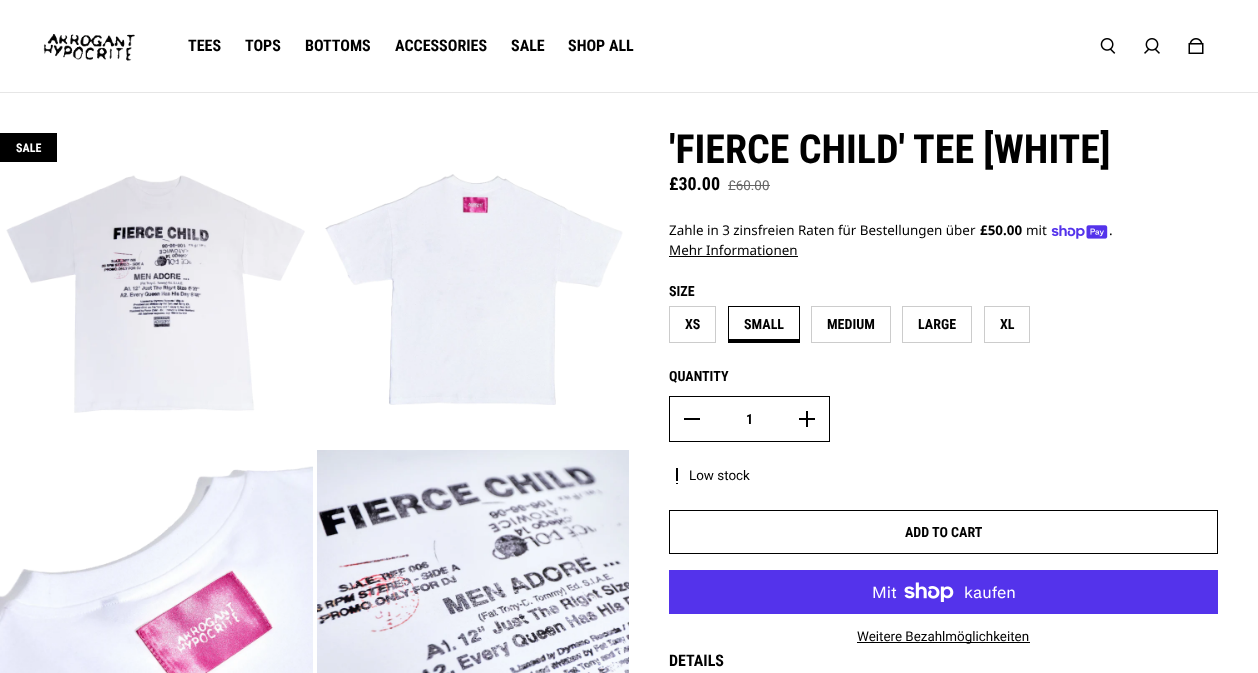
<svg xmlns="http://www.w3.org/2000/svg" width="1258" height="673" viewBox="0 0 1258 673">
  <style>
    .t1 { font: bold 16px Roboto Condensed; fill: #000; }
    .t2 { font: bold 12px Roboto Condensed; fill: #fff; }
    .t3 { font: bold 40px Roboto Condensed; fill: #000; }
    .t4 { font: bold 18px Roboto Condensed; fill: #000; }
    .t5 { font: 13.4px Roboto; fill: #666; }
    .t6 { font: 13.4px Noto Sans; fill: #000; }
    .t7 { font: bold 13.4px Noto Sans; fill: #000; }
    .t8 { font: bold 14px Roboto Condensed; fill: #000; }
    .t9 { font: 13.4px Roboto; fill: #000; }
    .t10 { font: 16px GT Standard; fill: #fff; }
  </style>
  <rect width="100%" height="100%" fill="#fff"/>
  <rect x="0" y="92" width="1258" height="1" fill="#e6e6e6"/>
  <image x="43" y="34" width="92" height="27" href="images/1.png"/>
  <text x="188" y="51" class="t1">TEES</text>
  <text x="245" y="51" class="t1">TOPS</text>
  <text x="305" y="51" class="t1">BOTTOMS</text>
  <text x="395" y="51" class="t1">ACCESSORIES</text>
  <text x="511" y="51" class="t1">SALE</text>
  <text x="568" y="51" class="t1">SHOP ALL</text>
  <image x="1100" y="38" width="16" height="16" href="images/2.png"/>
  <image x="1144" y="38" width="16" height="16" href="images/3.png"/>
  <image x="1188" y="38" width="16" height="16" href="images/4.png"/>
  <rect x="0" y="133" width="57" height="29" fill="#000"/>
  <text x="16" y="152" class="t2">SALE</text>
  <image x="6" y="175" width="299" height="238" href="images/5.png"/>
  <image x="325" y="174" width="298" height="231" href="images/6.png"/>
  <image x="0" y="466" width="313" height="207" href="images/7.png"/>
  <image x="317" y="450" width="312" height="223" href="images/8.png"/>
  <text x="669" y="163" class="t3">'FIERCE CHILD' TEE [WHITE]</text>
  <text x="669" y="190" class="t4">£30.00</text>
  <text x="728" y="190" class="t5">£60.00</text>
  <rect x="728" y="185" width="42" height="1" fill="#666"/>
  <text x="669" y="235" class="t6">Zahle in 3 zinsfreien Raten für Bestellungen über</text>
  <text x="980" y="235" class="t7">£50.00</text>
  <text x="1026" y="235" class="t6">mit</text>
  <image x="1051" y="225" width="57" height="14" href="images/9.png"/>
  <text x="1109" y="235" class="t6">.</text>
  <text x="669" y="255" class="t6">Mehr Informationen</text>
  <rect x="669" y="256" width="129" height="1" fill="#000"/>
  <text x="669" y="296" class="t8">SIZE</text>
  <rect x="669.5" y="306.5" width="46" height="36" fill="none" stroke="#ccc"/>
  <text x="685" y="329" class="t8">XS</text>
  <rect x="728.5" y="306.5" width="71" height="36" fill="none" stroke="#000"/>
  <text x="744" y="329" class="t8">SMALL</text>
  <rect x="728" y="339" width="72" height="3" fill="#000"/>
  <rect x="811.5" y="306.5" width="79" height="36" fill="none" stroke="#ccc"/>
  <text x="827" y="329" class="t8">MEDIUM</text>
  <rect x="902.5" y="306.5" width="69" height="36" fill="none" stroke="#ccc"/>
  <text x="918" y="329" class="t8">LARGE</text>
  <rect x="984.5" y="306.5" width="45" height="36" fill="none" stroke="#ccc"/>
  <text x="1000" y="329" class="t8">XL</text>
  <text x="669" y="381" class="t8">QUANTITY</text>
  <rect x="669.5" y="396.5" width="160" height="45" fill="none" stroke="#000"/>
  <rect x="684" y="418" width="16" height="2" fill="#000"/>
  <text x="746" y="424" class="t8">1</text>
  <rect x="799" y="418" width="16" height="2" fill="#000"/>
  <rect x="806" y="411" width="2" height="16" fill="#000"/>
  <rect x="676" y="468" width="2" height="13" fill="#000"/>
  <rect x="676" y="483" width="2" height="1" fill="#000"/>
  <text x="689" y="480" class="t9">Low stock</text>
  <rect x="669.5" y="510.5" width="548" height="43" fill="none" stroke="#000"/>
  <text x="905" y="537" class="t8">ADD TO CART</text>
  <rect x="669" y="570" width="549" height="44" fill="#5433eb"/>
  <text x="872" y="598" class="t10">Mit</text>
  <image x="904" y="582" width="50" height="20" href="images/10.png"/>
  <text x="964" y="598" class="t10">kaufen</text>
  <rect x="857" y="642" width="173" height="1" fill="#000"/>
  <text x="857" y="641" class="t9">Weitere Bezahlmöglichkeiten</text>
  <text x="669" y="666" class="t1">DETAILS</text>
</svg>
